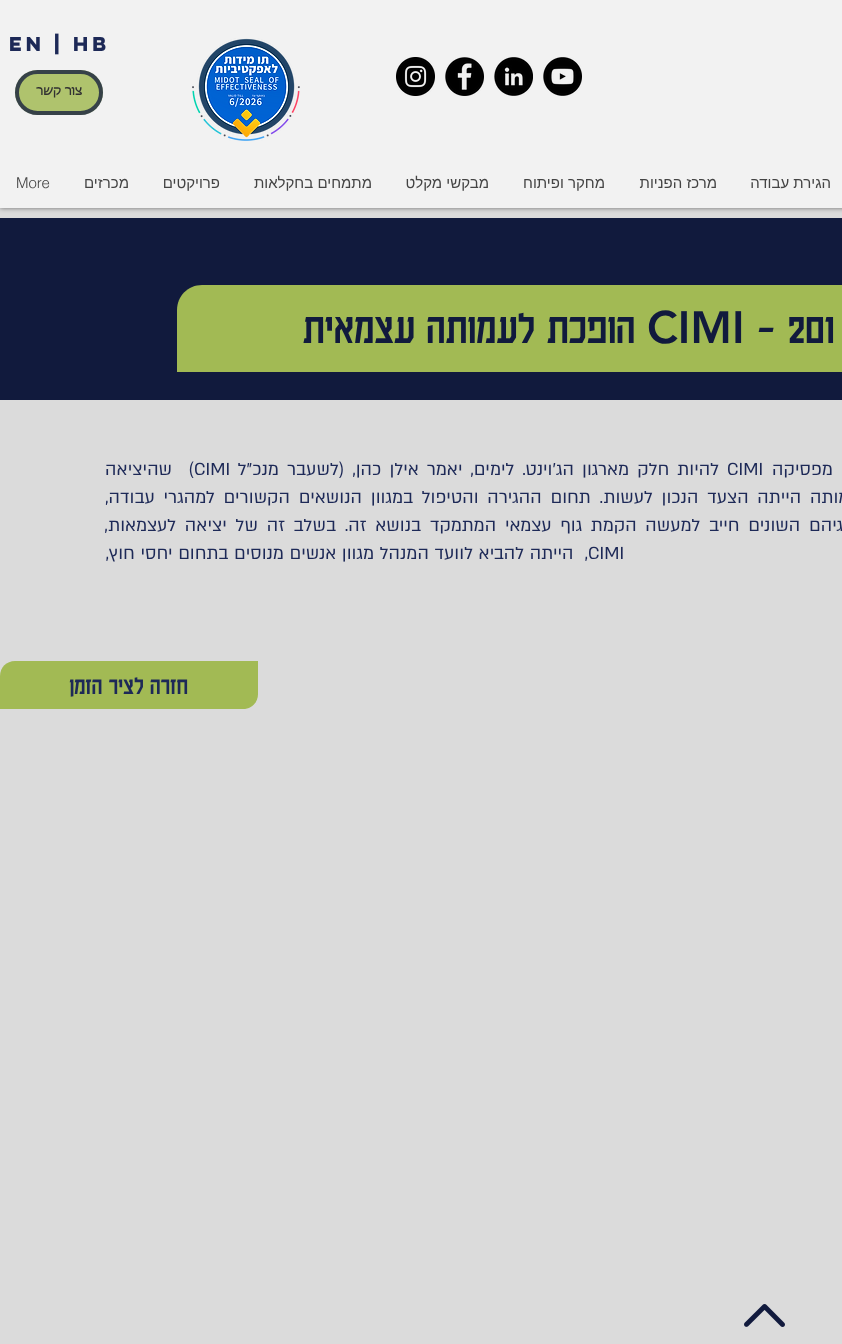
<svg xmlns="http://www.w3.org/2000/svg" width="842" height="1344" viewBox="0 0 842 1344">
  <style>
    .t1 { font: bold 18px 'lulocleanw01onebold'; fill: #1d2957; }
    .t2 { font: bold 12px tahoma; direction: rtl; fill: #323232; }
    .t3 { font: 15px Liberation Sans; direction: rtl; fill: #444; }
    .t4 { font: 300 15px helvetica; fill: #444; }
    .t5 { font: 500 45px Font; fill: #111a3d; }
    .t6 { font: 900 45px 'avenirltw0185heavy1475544'; fill: #111a3d; }
    .t7 { font: 500 45px Font; direction: rtl; fill: #111a3d; }
    .t8 { font: 20px 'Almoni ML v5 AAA'; direction: rtl; fill: #1d2957; }
    .t9 { font: 20px 'Almoni ML v5 AAA'; fill: #1d2957; }
    .t10 { font: 500 25px Font; direction: rtl; fill: #1d2957; }
  </style>
  <rect width="100%" height="100%" fill="#dbdbdb"/>
  <rect x="0" y="0" width="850" height="208" fill="#00000080" filter="blur(2.5px)"/>
  <rect x="0" y="0" width="842" height="208" fill="#f2f2f2"/>
  <image x="543" y="57" width="39" height="39" href="images/1.png"/>
  <image x="494" y="57" width="39" height="39" href="images/2.png"/>
  <image x="445" y="57" width="39" height="39" href="images/3.png"/>
  <image x="396" y="57" width="39" height="39" href="images/4.png"/>
  <image x="192" y="38" width="108" height="103" href="images/5.png"/>
  <text x="9" y="51" class="t1">EN | HB</text>
  <rect x="15" y="70" width="88" height="45" rx="22.5" fill="#afc36d"/>
  <rect x="17" y="72" width="84" height="41" rx="20.5" fill="none" stroke="#111a3dc4" stroke-width="4"/>
  <text x="82" y="95" class="t2">צור קשר</text>
  <text x="831" y="188" class="t3">הגירת עבודה</text>
  <text x="717" y="188" class="t3">מרכז הפניות</text>
  <text x="605" y="188" class="t3">מחקר ופיתוח</text>
  <text x="489" y="188" class="t3">מבקשי מקלט</text>
  <text x="372" y="188" class="t3">מתמחים בחקלאות</text>
  <text x="220" y="188" class="t3">פרויקטים</text>
  <text x="129" y="188" class="t3">מכרזים</text>
  <text x="16" y="188" class="t4">More</text>
  <rect x="0" y="218" width="842" height="182" fill="#111a3d"/>
  <path d="M202 285H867V347C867 361 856 372 842 372H177V310C177 296 188 285 202 285Z" fill="#a2ba54"/>
  <text x="756" y="343" class="t5">- 201</text>
  <text x="647" y="343" class="t6">CIMI</text>
  <text x="635" y="343" class="t7">הופכת לעמותה עצמאית</text>
  <text x="833" y="475" class="t8">מפסיקה</text>
  <text x="727" y="475" class="t9">CIMI</text>
  <text x="719" y="475" word-spacing="3" class="t8">להיות חלק מארגון הג'וינט. לימים, יאמר אילן כהן, (לשעבר מנכ"ל</text>
  <text x="194" y="475" class="t9">CIMI</text>
  <text x="194" y="475" word-spacing="3" class="t8" xml:space="preserve">)  שהיציאה</text>
  <text x="979" y="503" word-spacing="3.6" class="t8">לעצמאות של העמותה הייתה הצעד הנכון לעשות. תחום ההגירה והטיפול במגוון הנושאים הקשורים למהגרי עבודה,</text>
  <text x="979" y="531" word-spacing="3.6" class="t8">מבקשי מקלט לסוגיהם השונים חייב למעשה הקמת גוף עצמאי המתמקד בנושא זה. בשלב זה של יציאה לעצמאות,</text>
  <text x="588" y="559" class="t9">CIMI</text>
  <text x="588" y="559" word-spacing="0.5" class="t8" xml:space="preserve">,  הייתה להביא לוועד המנהל מגוון אנשים מנוסים בתחום יחסי חוץ,</text>
  <path d="M15 661H258V694C258 702.5 251.5 709 243 709H0V676C0 667.5 6.5 661 15 661Z" fill="#a2ba54"/>
  <text x="188" y="694" class="t10">חזרה לציר הזמן</text>
  <image x="744" y="1304" width="41" height="23" href="images/6.png"/>
</svg>
